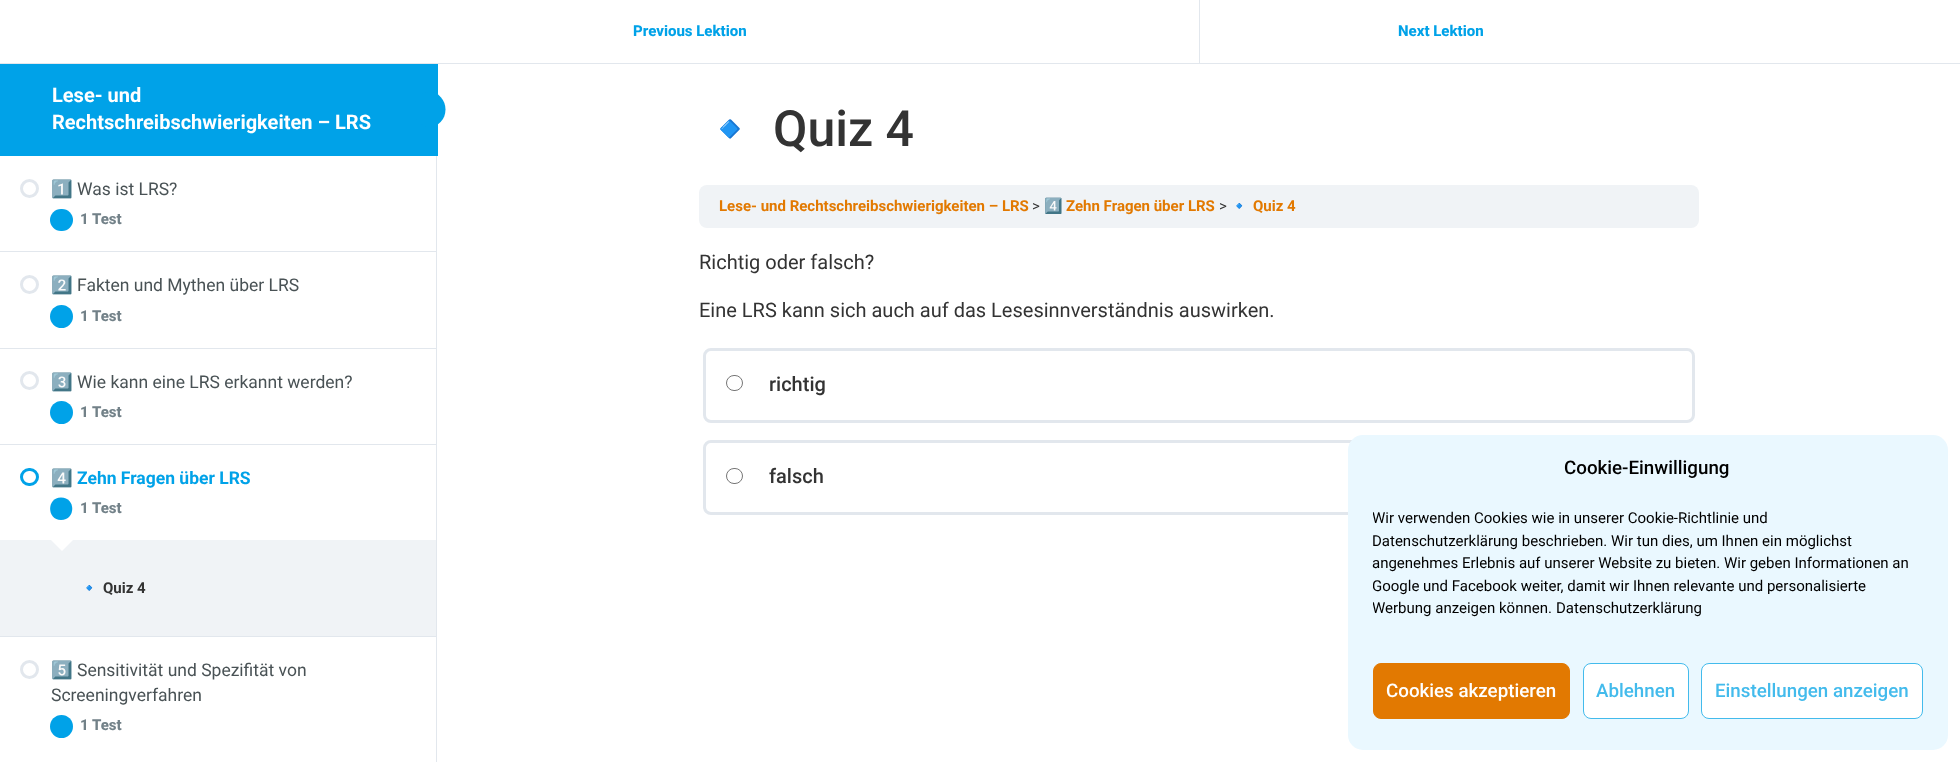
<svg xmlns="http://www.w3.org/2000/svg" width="1960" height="762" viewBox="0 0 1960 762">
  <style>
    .t1 { font: bold 20px Roboto; fill: #fff; }
    .t2 { font: 17.5px Noto Color Emoji; fill: #495255; }
    .t3 { font: 17.5px Roboto; fill: #495255; }
    .t4 { font: 800 15px Roboto; fill: #728188; }
    .t5 { font: bold 17.5px Noto Color Emoji; fill: #00a2e8; }
    .t6 { font: bold 17.5px Roboto; fill: #00a2e8; }
    .t7 { font: bold 15px Noto Color Emoji; fill: #333; }
    .t8 { font: bold 15px Roboto; fill: #333; }
    .t9 { font: 800 15px Roboto; fill: #00a2e8; }
    .t10 { font: 50px Noto Color Emoji; fill: #333; }
    .t11 { font: 500 50px Roboto; fill: #333; }
    .t12 { font: bold 15px Roboto; fill: #e27901; }
    .t13 { font: 15px Roboto; fill: #333; }
    .t14 { font: bold 15px Noto Color Emoji; fill: #e27901; }
    .t15 { font: 20px Roboto; fill: #333; }
    .t16 { font: 500 20px Roboto; fill: #333; }
    .t17 { font: 500 18.75px Roboto; fill: #000; }
    .t18 { font: 15px Roboto; fill: #000; }
    .t19 { font: 500 18.75px Roboto; fill: #fff; }
    .t20 { font: 500 18.75px Roboto; fill: #43bbec; }
  </style>
  <defs>
    <clipPath id="clip1"><rect x="0" y="540" width="436" height="96"/></clipPath>
    <clipPath id="clip2"><rect x="1373" y="508" width="550" height="130"/></clipPath>
  </defs>
  <rect width="100%" height="100%" fill="#fff"/>
  <rect x="436" y="156" width="1" height="606" fill="#e2e7ed"/>
  <rect x="0" y="64" width="438" height="92" fill="#00a2e8"/>
  <text x="52" y="102" class="t1">Lese- und</text>
  <text x="52" y="129" class="t1">Rechtschreibschwierigkeiten – LRS</text>
  <ellipse cx="429.5" cy="109.5" rx="16" ry="17.5" fill="#00a2e8"/>
  <rect x="0" y="251" width="436" height="1" fill="#e2e7ed"/>
  <circle cx="29.5" cy="188.5" r="8" fill="none" stroke="#e2e7ed" stroke-width="3"/>
  <text x="51" y="195" class="t2">1️⃣</text>
  <text x="77" y="195" class="t3">Was ist LRS?</text>
  <rect x="50" y="209" width="23" height="22" rx="11" fill="#00a2e8"/>
  <text x="80" y="224" class="t4">1 Test</text>
  <rect x="0" y="348" width="436" height="1" fill="#e2e7ed"/>
  <circle cx="29.5" cy="284.5" r="8" fill="none" stroke="#e2e7ed" stroke-width="3"/>
  <text x="51" y="291" class="t2">2️⃣</text>
  <text x="77" y="291" class="t3">Fakten und Mythen über LRS</text>
  <circle cx="61.5" cy="316.5" r="11.5" fill="#00a2e8"/>
  <text x="80" y="321" class="t4">1 Test</text>
  <rect x="0" y="444" width="436" height="1" fill="#e2e7ed"/>
  <circle cx="29.5" cy="380.5" r="8" fill="none" stroke="#e2e7ed" stroke-width="3"/>
  <text x="51" y="388" class="t2">3️⃣</text>
  <text x="77" y="388" class="t3">Wie kann eine LRS erkannt werden?</text>
  <circle cx="61.5" cy="412.5" r="11.5" fill="#00a2e8"/>
  <text x="80" y="417" class="t4">1 Test</text>
  <rect x="0" y="636" width="436" height="1" fill="#e2e7ed"/>
  <rect x="21.5" y="469.5" width="16" height="15" rx="7.5" fill="none" stroke="#00a2e8" stroke-width="3"/>
  <text x="51" y="484" class="t5">4️⃣</text>
  <text x="77" y="484" class="t6">Zehn Fragen über LRS</text>
  <path d="M61 520C46.5 520 46.5 497.5 61 497.5C76 497.5 76 520 61 520Z" fill="#00a2e8"/>
  <text x="80" y="513" class="t4">1 Test</text>
  <rect x="0" y="540" width="436" height="96" fill="#f0f3f6"/>
  <g clip-path="url(#clip1)">
    <path d="M50.5 539.5L62 528L73.5 539.5L62 551Z" fill="#fff"/>
  </g>
  <text x="80" y="593" class="t7">🔹</text>
  <text x="103" y="593" class="t8">Quiz 4</text>
  <circle cx="29.5" cy="669.5" r="8" fill="none" stroke="#e2e7ed" stroke-width="3"/>
  <text x="51" y="676" class="t2">5️⃣</text>
  <text x="77" y="676" class="t3">Sensitivität und Spezifität von</text>
  <text x="51" y="701" class="t3">Screeningverfahren</text>
  <circle cx="61.5" cy="726.5" r="11.5" fill="#00a2e8"/>
  <text x="80" y="730" class="t4">1 Test</text>
  <rect x="0" y="63" width="1960" height="1" fill="#e2e7ed"/>
  <rect x="1199" y="0" width="1" height="63" fill="#e2e7ed"/>
  <text x="633" y="36" class="t9">Previous Lektion</text>
  <text x="1398" y="36" class="t9">Next Lektion</text>
  <text x="699" y="146" class="t10">🔹</text>
  <text x="773" y="146" class="t11">Quiz 4</text>
  <rect x="699" y="185" width="1000" height="43" rx="8" fill="#f0f3f6"/>
  <text x="719" y="211" class="t12">Lese- und Rechtschreibschwierigkeiten – LRS</text>
  <text x="1032" y="211" class="t13">&gt;</text>
  <text x="1044" y="211" class="t14">4️⃣</text>
  <text x="1066" y="211" class="t12">Zehn Fragen über LRS</text>
  <text x="1219" y="211" class="t13">&gt;</text>
  <text x="1230" y="211" class="t14">🔹</text>
  <text x="1253" y="211" class="t12">Quiz 4</text>
  <text x="699" y="269" class="t15">Richtig oder falsch?</text>
  <text x="699" y="317" class="t15">Eine LRS kann sich auch auf das Lesesinnverständnis auswirken.</text>
  <rect x="704.5" y="349.5" width="989" height="72" rx="6.5" fill="none" stroke="#e2e7ed" stroke-width="3"/>
  <rect x="726.5" y="375.5" width="16" height="15" rx="7.5" fill="none" stroke="#767676"/>
  <text x="769" y="391" class="t16">richtig</text>
  <rect x="704.5" y="441.5" width="989" height="72" rx="6.5" fill="none" stroke="#e2e7ed" stroke-width="3"/>
  <rect x="726.5" y="468.5" width="16" height="15" rx="7.5" fill="none" stroke="#767676"/>
  <text x="769" y="483" class="t16">falsch</text>
  <rect x="1348" y="435" width="600" height="315" rx="15" fill="#eaf8ff"/>
  <text x="1564" y="474" class="t17">Cookie-Einwilligung</text>
  <g clip-path="url(#clip2)">
    <text x="1372" y="523" class="t18">Wir verwenden Cookies wie in unserer Cookie-Richtlinie und</text>
  </g>
  <text x="1372" y="546" class="t18">Datenschutzerklärung beschrieben. Wir tun dies, um Ihnen ein möglichst</text>
  <text x="1372" y="568" class="t18">angenehmes Erlebnis auf unserer Website zu bieten. Wir geben Informationen an</text>
  <g clip-path="url(#clip2)">
    <text x="1372" y="591" class="t18">Google und Facebook weiter, damit wir Ihnen relevante und personalisierte</text>
    <text x="1372" y="613" class="t18">Werbung anzeigen können.</text>
  </g>
  <text x="1556" y="613" class="t18">Datenschutzerklärung</text>
  <rect x="1373.5" y="663.5" width="196" height="55" rx="7.5" fill="#e27901" stroke="#e27901"/>
  <text x="1386" y="697" class="t19">Cookies akzeptieren</text>
  <rect x="1583.5" y="663.5" width="105" height="55" rx="7.5" fill="#fff" stroke="#43bbec"/>
  <text x="1596" y="697" class="t20">Ablehnen</text>
  <rect x="1701.5" y="663.5" width="221" height="55" rx="7.5" fill="#fff" stroke="#43bbec"/>
  <text x="1715" y="697" class="t20">Einstellungen anzeigen</text>
</svg>
